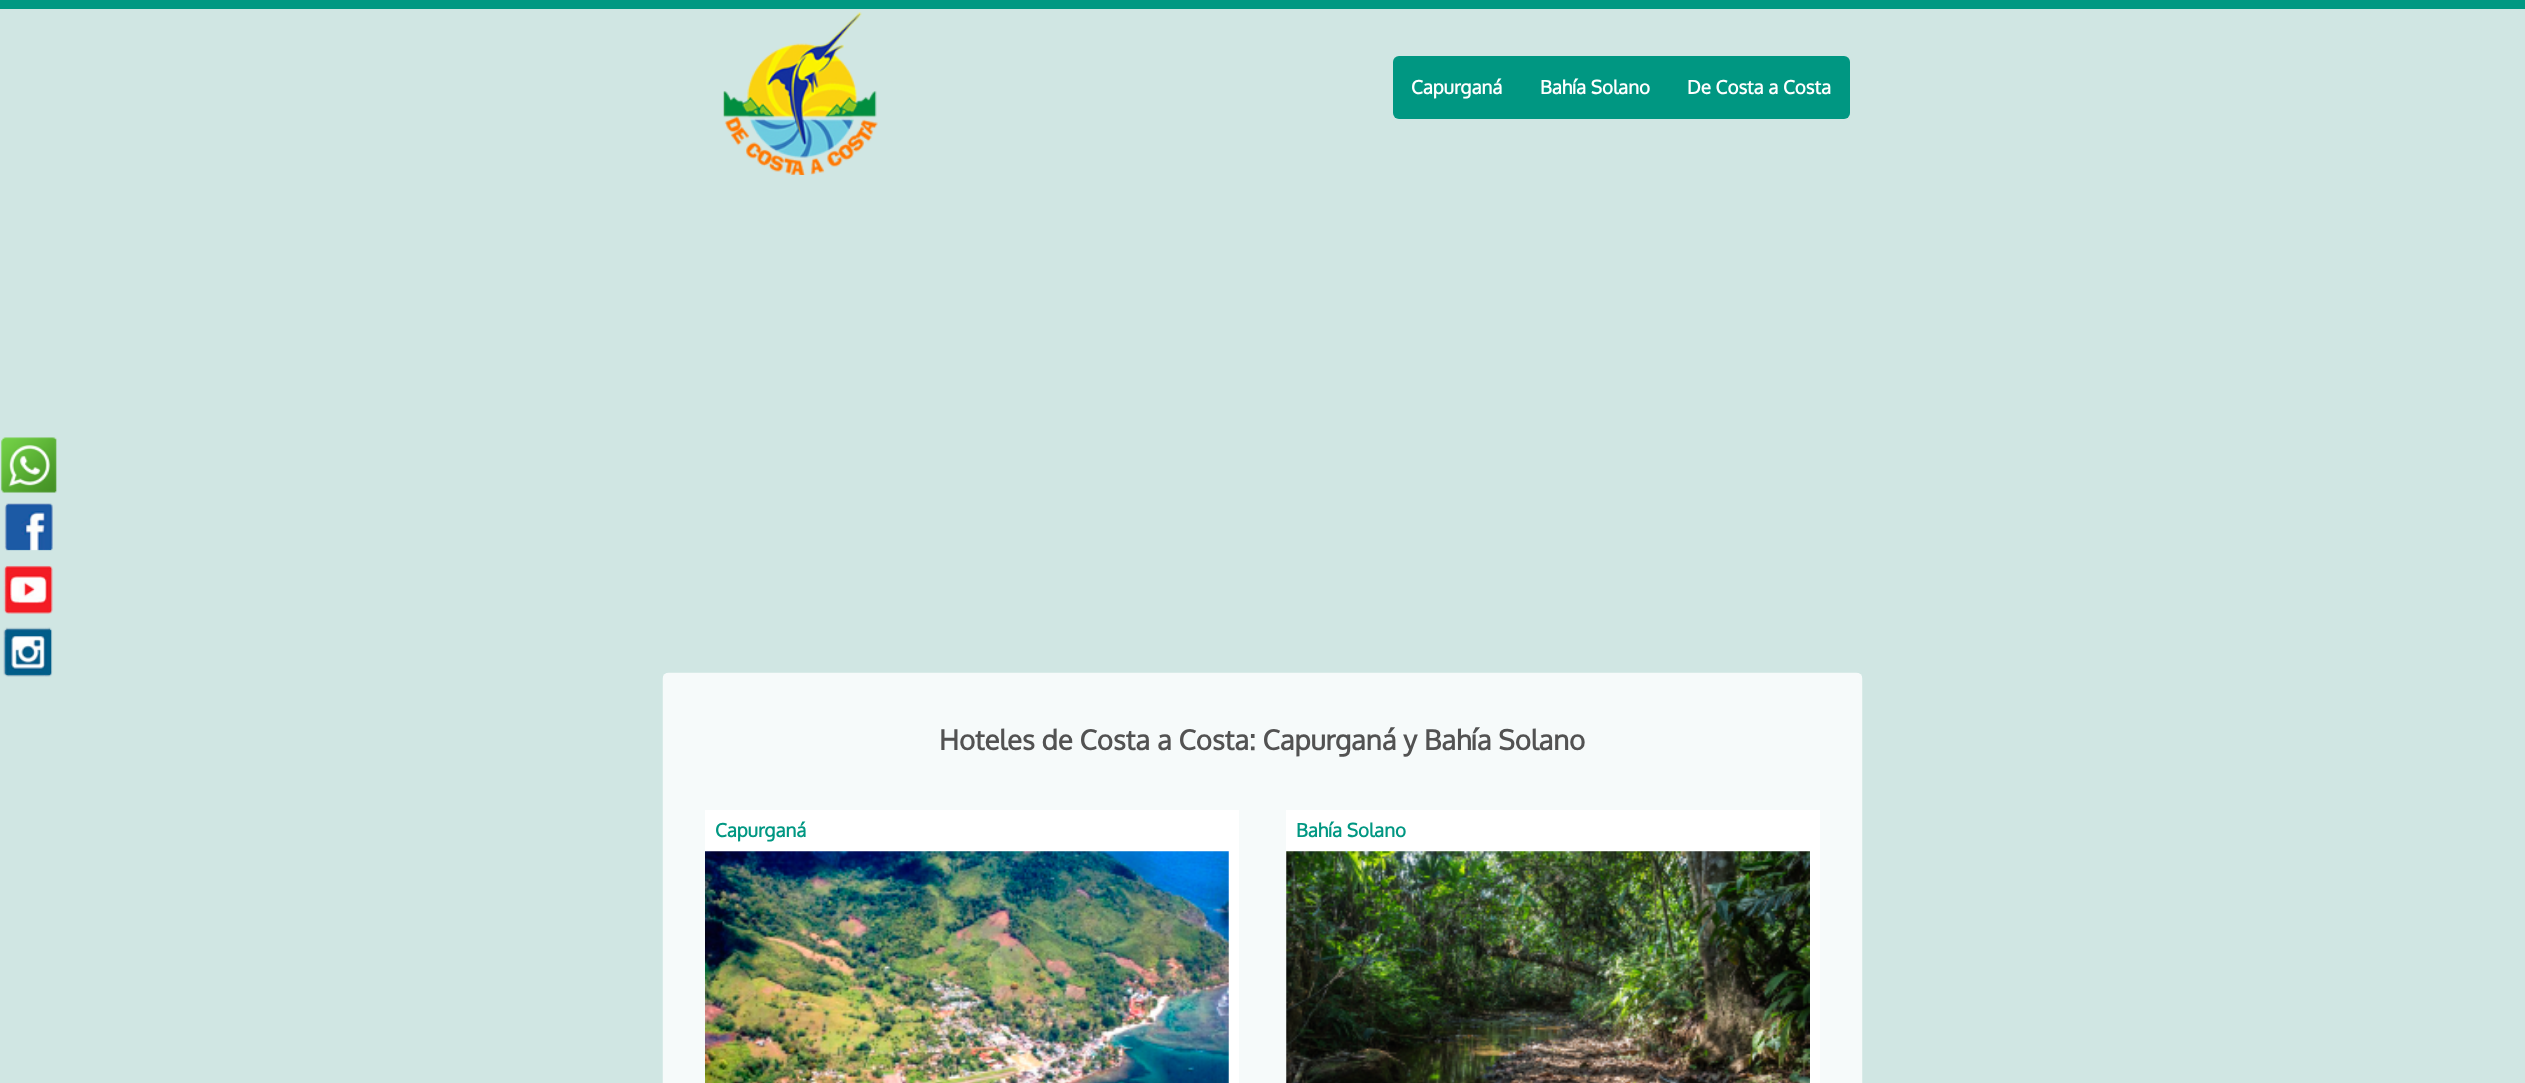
<svg xmlns="http://www.w3.org/2000/svg" width="2525" height="1083" viewBox="0 0 2525 1083">
  <style>
    .t1 { font: bold 18.75px Oxygen; fill: #fff; }
    .t2 { font: bold 27.5px Oxygen; fill: #525252; }
    .t3 { font: bold 18.75px Oxygen; fill: #009782; }
  </style>
  <rect width="100%" height="100%" fill="#d0e6e3"/>
  <rect x="0" y="0" width="2525" height="9" fill="#009882"/>
  <image x="723" y="12" width="155" height="163" href="images/1.png"/>
  <rect x="1393" y="56" width="457" height="63" rx="6" fill="#009782"/>
  <text x="1411" y="94" class="t1">Capurganá</text>
  <text x="1540" y="94" class="t1">Bahía Solano</text>
  <text x="1687" y="94" class="t1">De Costa a Costa</text>
  <image x="1" y="437" width="56" height="56" href="images/2.png"/>
  <image x="4" y="503" width="49" height="48" href="images/3.png"/>
  <image x="3" y="565" width="50" height="49" href="images/4.png"/>
  <image x="3" y="627" width="50" height="50" href="images/5.png"/>
  <image x="662" y="672" width="1201" height="411" href="images/6.png"/>
  <text x="939" y="750" class="t2">Hoteles de Costa a Costa: Capurganá y Bahía Solano</text>
  <rect x="705" y="810" width="534" height="273" fill="#fff"/>
  <text x="715" y="837" class="t3">Capurganá</text>
  <image x="705" y="851" width="524" height="232" href="images/7.png"/>
  <rect x="1286" y="810" width="534" height="273" fill="#fff"/>
  <text x="1296" y="837" class="t3">Bahía Solano</text>
  <image x="1286" y="851" width="524" height="232" href="images/8.png"/>
</svg>
